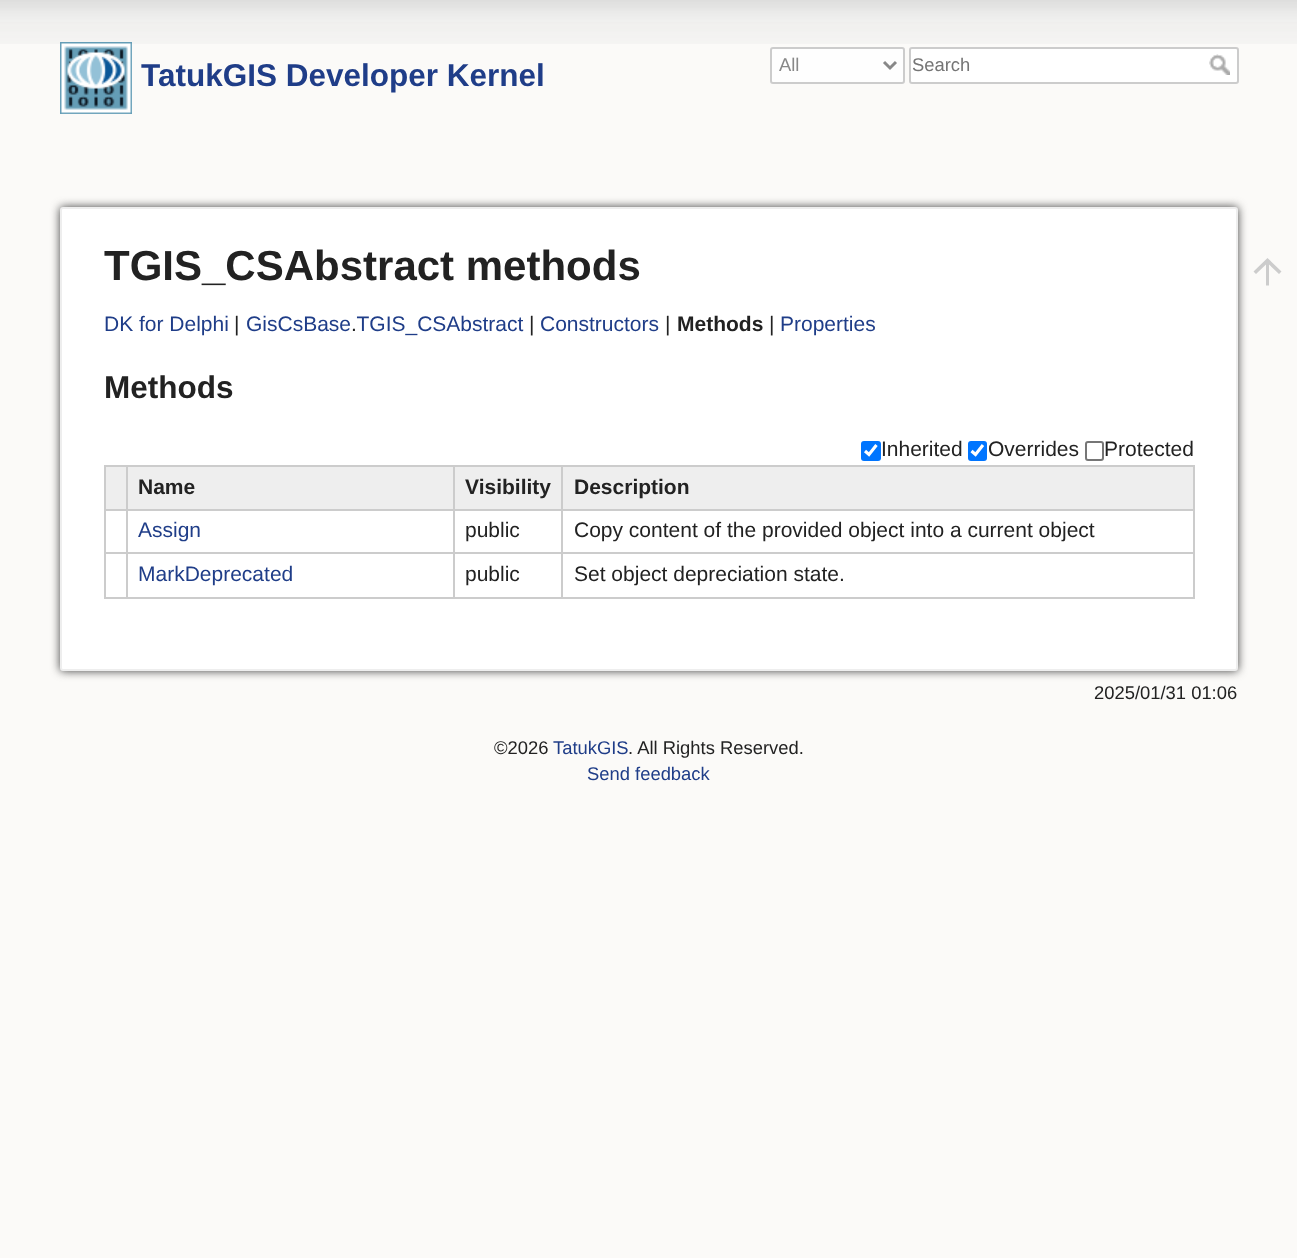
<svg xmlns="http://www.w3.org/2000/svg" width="1297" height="1258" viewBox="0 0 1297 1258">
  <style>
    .t1 { font: bold 31.5px Liberation Sans; fill: #1f3d88; }
    .t2 { font: 18.4px Liberation Sans; fill: #888; }
    .t3 { font: 18.4px Liberation Sans; fill: #757575; }
    .t4 { font: bold 42px Liberation Sans; fill: #222; }
    .t5 { font: 21px Liberation Sans; fill: #1f3d88; }
    .t6 { font: 21px Liberation Sans; fill: #222; }
    .t7 { font: bold 21px Liberation Sans; fill: #222; }
    .t8 { font: bold 31.5px Liberation Sans; fill: #222; }
    .t9 { font: 18.4px Liberation Sans; fill: #222; }
    .t10 { font: 18.4px Liberation Sans; fill: #1f3d88; }
  </style>
  <rect width="100%" height="100%" fill="#fbfaf8"/>
  <image x="0" y="0" width="1297" height="44" href="images/1.png"/>
  <image x="60" y="42" width="72" height="72" href="images/2.png"/>
  <text x="141" y="86" class="t1">TatukGIS Developer Kernel</text>
  <rect x="771" y="48" width="133" height="35" rx="2" fill="#fefefe" stroke="#ccc" stroke-width="2"/>
  <path d="M884 62L890 68L896 62" fill="none" stroke="#888" stroke-width="3"/>
  <text x="779" y="71" class="t2">All</text>
  <rect x="910" y="48" width="328" height="35" rx="2" fill="#fff" stroke="#ccc" stroke-width="2"/>
  <text x="912" y="71" class="t3">Search</text>
  <image x="1209" y="54" width="21" height="21" href="images/3.png"/>
  <rect x="60" y="207" width="1178" height="464" rx="3" fill="#404040" filter="blur(5px)"/>
  <rect x="61" y="208" width="1176" height="462" rx="2" fill="#fff" stroke="#eee" stroke-width="2"/>
  <text x="104" y="280" class="t4">TGIS_CSAbstract methods</text>
  <text x="104" y="331" class="t5">DK for Delphi</text>
  <text x="234" y="331" class="t6">|</text>
  <text x="246" y="331" class="t5">GisCsBase TGIS_CSAbstract</text>
  <text x="529" y="331" class="t6">|</text>
  <text x="540" y="331" class="t5">Constructors</text>
  <text x="665" y="331" class="t6">|</text>
  <text x="677" y="331" class="t7">Methods</text>
  <text x="769" y="331" class="t6">|</text>
  <text x="780" y="331" class="t5">Properties</text>
  <text x="351" y="331" class="t6">.</text>
  <text x="104" y="398" class="t8">Methods</text>
  <rect x="861" y="441" width="20" height="20" rx="3" fill="#0075ff"/>
  <path d="M865 451L869 454.5L876.5 445" fill="none" stroke="#fff" stroke-width="3.1"/>
  <text x="881" y="456" class="t6">Inherited</text>
  <rect x="968" y="441" width="19" height="20" rx="3" fill="#0075ff"/>
  <path d="M971.5 451L975.5 454.5L983 445" fill="none" stroke="#fff" stroke-width="3.1"/>
  <text x="988" y="456" class="t6">Overrides</text>
  <rect x="1086" y="442" width="17" height="18" rx="2" fill="none" stroke="#767676" stroke-width="2"/>
  <text x="1104" y="456" class="t6">Protected</text>
  <rect x="104" y="465" width="1090" height="2" fill="#ccc"/>
  <rect x="1193" y="465" width="2" height="134" fill="#ccc"/>
  <rect x="104" y="597" width="1090" height="2" fill="#ccc"/>
  <rect x="104" y="465" width="2" height="134" fill="#ccc"/>
  <rect x="106" y="467" width="20" height="42" fill="#eee"/>
  <rect x="128" y="467" width="325" height="42" fill="#eee"/>
  <rect x="561" y="509" width="633" height="2" fill="#ccc"/>
  <rect x="561" y="552" width="633" height="2" fill="#ccc"/>
  <rect x="561" y="552" width="2" height="47" fill="#ccc"/>
  <rect x="453" y="552" width="110" height="2" fill="#ccc"/>
  <rect x="561" y="509" width="2" height="45" fill="#ccc"/>
  <rect x="453" y="509" width="110" height="2" fill="#ccc"/>
  <rect x="453" y="552" width="2" height="47" fill="#ccc"/>
  <rect x="126" y="552" width="329" height="2" fill="#ccc"/>
  <rect x="453" y="509" width="2" height="45" fill="#ccc"/>
  <rect x="126" y="509" width="329" height="2" fill="#ccc"/>
  <rect x="126" y="552" width="2" height="47" fill="#ccc"/>
  <rect x="104" y="552" width="24" height="2" fill="#ccc"/>
  <rect x="126" y="509" width="2" height="45" fill="#ccc"/>
  <rect x="104" y="509" width="24" height="2" fill="#ccc"/>
  <rect x="126" y="465" width="2" height="45" fill="#ccc"/>
  <text x="138" y="494" class="t7">Name</text>
  <rect x="455" y="467" width="106" height="42" fill="#eee"/>
  <rect x="453" y="465" width="2" height="45" fill="#ccc"/>
  <text x="465" y="494" class="t7">Visibility</text>
  <rect x="563" y="467" width="630" height="42" fill="#eee"/>
  <rect x="561" y="465" width="2" height="45" fill="#ccc"/>
  <text x="574" y="494" class="t7">Description</text>
  <text x="138" y="537" class="t5">Assign</text>
  <text x="465" y="537" class="t6">public</text>
  <text x="574" y="537" class="t6">Copy content of the provided object into a current object</text>
  <text x="138" y="581" class="t5">MarkDeprecated</text>
  <text x="465" y="581" class="t6">public</text>
  <text x="574" y="581" class="t6">Set object depreciation state.</text>
  <text x="1094" y="699" class="t9">2025/01/31 01:06</text>
  <path d="M1269 285.5H1266V264.5L1256 274L1253.5 271.5L1267.5 258L1281.5 271.5L1279 274L1269 264.5Z" fill="#ccc"/>
  <text x="494" y="754" class="t9">©2026</text>
  <text x="553" y="754" class="t10">TatukGIS</text>
  <text x="628" y="754" class="t9">. All Rights Reserved.</text>
  <text x="587" y="780" class="t10">Send feedback</text>
</svg>
